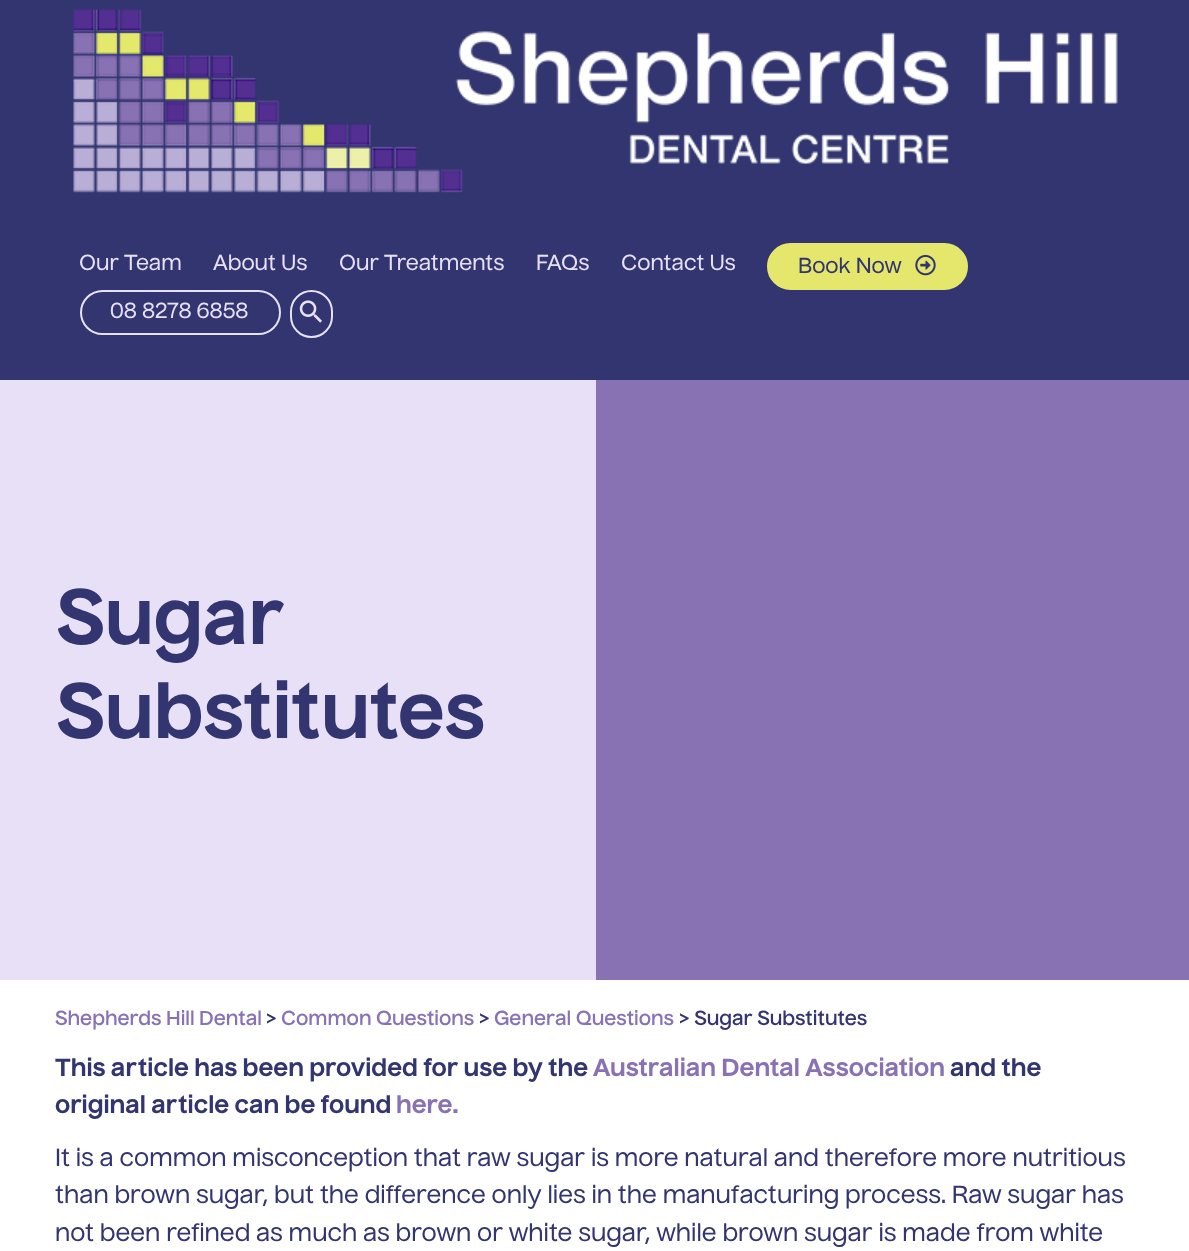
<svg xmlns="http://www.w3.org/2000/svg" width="1189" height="1251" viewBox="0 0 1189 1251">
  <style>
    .t1 { font: 500 21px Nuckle; fill: #e8e0f6; }
    .t2 { font: 500 21px Nuckle; fill: #323570; }
    .t3 { font: bold 75px Nuckle; fill: #323570; }
    .t4 { font: 600 19.5px Nuckle; fill: #8872b4; }
    .t5 { font: 600 19.5px Nuckle; fill: #323570; }
    .t6 { font: bold 24px Nuckle; fill: #323570; }
    .t7 { font: bold 24px Nuckle; fill: #8872b4; }
    .t8 { font: 500 24px Nuckle; fill: #323570; }
  </style>
  <rect width="100%" height="100%" fill="#fff"/>
  <rect x="0" y="0" width="1189" height="380" fill="#323570"/>
  <image x="73" y="9" width="1045" height="184" href="images/1.png"/>
  <text x="79" y="270" class="t1">Our Team</text>
  <text x="213" y="270" class="t1">About Us</text>
  <text x="339" y="270" class="t1">Our Treatments</text>
  <text x="536" y="270" class="t1">FAQs</text>
  <text x="621" y="270" class="t1">Contact Us</text>
  <rect x="768" y="244" width="199" height="45" rx="22.5" fill="#e5e76c" stroke="#e5e76c" stroke-width="2"/>
  <text x="798" y="273" class="t2">Book Now</text>
  <image x="915" y="254" width="21" height="22" href="images/2.png"/>
  <rect x="81" y="291" width="199" height="43" rx="21.5" fill="none" stroke="#e8e0f6" stroke-width="2"/>
  <text x="110" y="318" class="t1">08 8278 6858</text>
  <rect x="291" y="291" width="41" height="46" rx="20.5" fill="none" stroke="#e8e0f6" stroke-width="2"/>
  <image x="299" y="300" width="23" height="23" href="images/3.png"/>
  <rect x="596" y="380" width="593" height="600" fill="#8872b4"/>
  <rect x="0" y="380" width="596" height="600" fill="#e8e0f6"/>
  <text x="56" y="644" class="t3">Sugar</text>
  <text x="56" y="738" class="t3">Substitutes</text>
  <text x="55" y="1025" class="t4">Shepherds Hill Dental</text>
  <text x="266" y="1025" class="t5">&gt;</text>
  <text x="281" y="1025" class="t4">Common Questions</text>
  <text x="479" y="1025" class="t5">&gt;</text>
  <text x="494" y="1025" class="t4">General Questions</text>
  <text x="679" y="1025" class="t5">&gt; Sugar Substitutes</text>
  <text x="55" y="1076" class="t6">This article has been provided for use by the</text>
  <text x="593" y="1076" class="t7">Australian Dental Association</text>
  <text x="950" y="1076" class="t6">and the</text>
  <text x="55" y="1113" class="t6">original article can be found</text>
  <text x="396" y="1113" class="t7">here.</text>
  <text x="55" y="1166" class="t8">It is a common misconception that raw sugar is more natural and therefore more nutritious</text>
  <text x="55" y="1203" class="t8">than brown sugar, but the difference only lies in the manufacturing process. Raw sugar has</text>
  <text x="55" y="1241" class="t8">not been refined as much as brown or white sugar, while brown sugar is made from white</text>
</svg>
